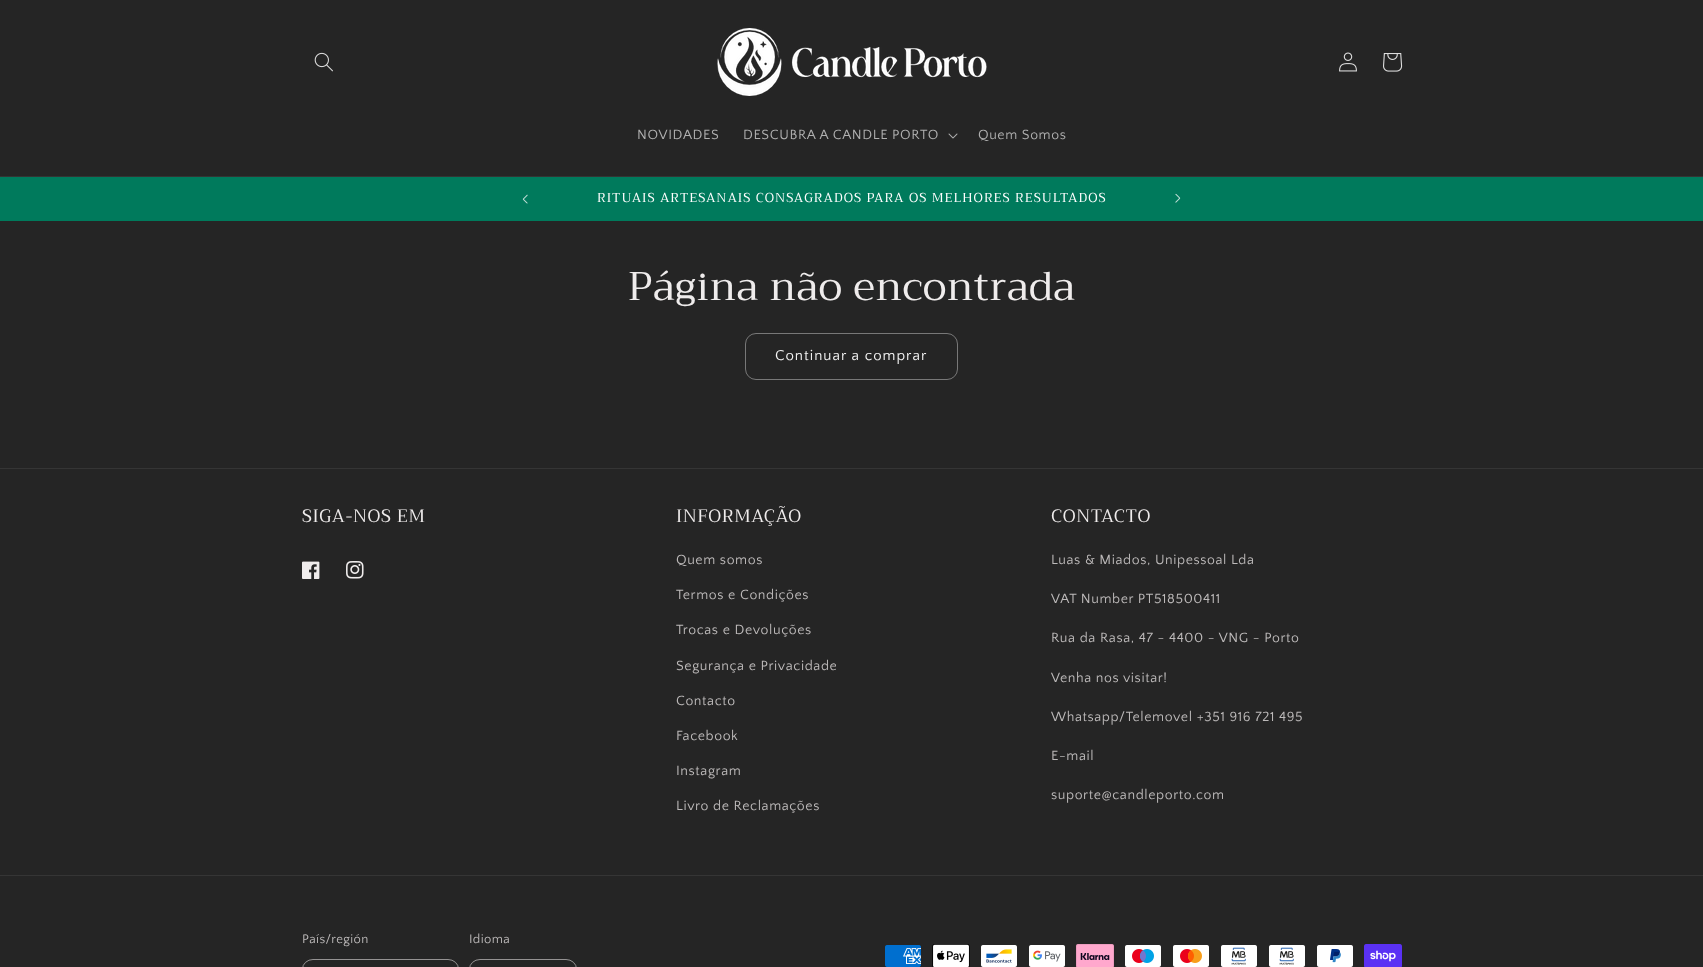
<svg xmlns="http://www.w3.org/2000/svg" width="1703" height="967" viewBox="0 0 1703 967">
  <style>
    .t1 { font: 14px Quattrocento Sans; letter-spacing: 0.6px; fill: #b0b0b0; }
    .t2 { font: 13px Trirong; letter-spacing: 1px; fill: #fff; }
    .t3 { font: 40px Trirong; letter-spacing: 0.6px; fill: #efecec; }
    .t4 { font: 15px Quattrocento Sans; letter-spacing: 1px; fill: #f5f5f5; }
    .t5 { font: 18px Trirong; letter-spacing: 0.6px; fill: #efecec; }
    .t6 { font: 14px Quattrocento Sans; letter-spacing: 0.6px; fill: #bdbaba; }
    .t7 { font: 13px Quattrocento Sans; letter-spacing: 0.4px; fill: #bdbaba; }
  </style>
  <rect width="100%" height="100%" fill="#252525"/>
  <rect x="0" y="176" width="1703" height="1" fill="#343434"/>
  <image x="314" y="52" width="19" height="20" href="images/1.png"/>
  <image x="717" y="28" width="270" height="68" href="images/2.png"/>
  <image x="1339" y="52" width="18" height="20" href="images/3.png"/>
  <image x="1383" y="53" width="20" height="19" href="images/4.png"/>
  <text x="637" y="139" class="t1">NOVIDADES</text>
  <text x="743" y="139" class="t1">DESCUBRA A CANDLE PORTO</text>
  <image x="948" y="133" width="10" height="6" href="images/5.png"/>
  <text x="978" y="139" class="t1">Quem Somos</text>
  <rect x="0" y="177" width="1703" height="44" fill="#007a5c"/>
  <image x="522" y="194" width="6" height="10" href="images/6.png"/>
  <text x="597" y="202" class="t2">RITUAIS ARTESANAIS CONSAGRADOS PARA OS MELHORES RESULTADOS</text>
  <image x="1175" y="193" width="6" height="10" href="images/7.png"/>
  <text x="628" y="300" class="t3">Página não encontrada</text>
  <rect x="745.5" y="333.5" width="212" height="46" rx="10.5" fill="none" stroke="#787878"/>
  <text x="775" y="360" class="t4">Continuar a comprar</text>
  <rect x="0" y="468" width="1703" height="1" fill="#353535"/>
  <text x="302" y="522" class="t5">SIGA-NOS EM</text>
  <image x="302" y="561" width="18" height="18" href="images/8.png"/>
  <image x="346" y="561" width="18" height="18" href="images/9.png"/>
  <text x="676" y="522" class="t5">INFORMAÇÃO</text>
  <text x="676" y="564" class="t6">Quem somos</text>
  <text x="676" y="599" class="t6">Termos e Condições</text>
  <text x="676" y="634" class="t6">Trocas e Devoluções</text>
  <text x="676" y="670" class="t6">Segurança e Privacidade</text>
  <text x="676" y="705" class="t6">Contacto</text>
  <text x="676" y="740" class="t6">Facebook</text>
  <text x="676" y="775" class="t6">Instagram</text>
  <text x="676" y="810" class="t6">Livro de Reclamações</text>
  <text x="1051" y="522" class="t5">CONTACTO</text>
  <text x="1051" y="564" class="t6">Luas &amp; Miados, Unipessoal Lda</text>
  <text x="1051" y="603" class="t6">VAT Number PT518500411</text>
  <text x="1051" y="642" class="t6">Rua da Rasa, 47 - 4400 - VNG - Porto</text>
  <text x="1051" y="682" class="t6">Venha nos visitar!</text>
  <text x="1051" y="721" class="t6">Whatsapp/Telemovel +351 916 721 495</text>
  <text x="1051" y="760" class="t6">E-mail</text>
  <text x="1051" y="799" class="t6">suporte@candleporto.com</text>
  <rect x="0" y="875" width="1703" height="1" fill="#353535"/>
  <text x="302" y="943" class="t7">País/región</text>
  <rect x="302.5" y="959.5" width="156" height="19" rx="10.5" fill="none" stroke="#949292"/>
  <text x="469" y="943" class="t7">Idioma</text>
  <rect x="469.5" y="959.5" width="107" height="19" rx="10.5" fill="none" stroke="#949292"/>
  <image x="885" y="945" width="36" height="22" href="images/10.png"/>
  <image x="932" y="944" width="38" height="23" href="images/11.png"/>
  <image x="981" y="945" width="36" height="22" href="images/12.png"/>
  <image x="1029" y="945" width="36" height="22" href="images/13.png"/>
  <image x="1076" y="944" width="38" height="23" href="images/14.png"/>
  <image x="1125" y="945" width="36" height="22" href="images/15.png"/>
  <image x="1173" y="945" width="36" height="22" href="images/16.png"/>
  <image x="1221" y="945" width="36" height="22" href="images/17.png"/>
  <image x="1269" y="945" width="36" height="22" href="images/17.png"/>
  <image x="1317" y="945" width="36" height="22" href="images/18.png"/>
  <image x="1364" y="944" width="38" height="23" href="images/19.png"/>
</svg>
